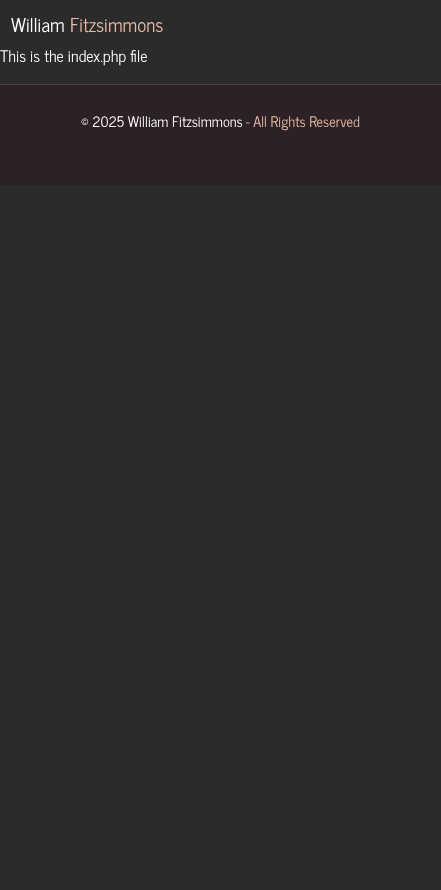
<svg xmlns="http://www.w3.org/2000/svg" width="441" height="890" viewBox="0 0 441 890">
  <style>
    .t1 { font: 19px News Cycle; fill: #fff; }
    .t2 { font: 19px News Cycle; fill: #e8bca7; }
    .t3 { font: 16px News Cycle; fill: #fff; }
    .t4 { font: 14.4px News Cycle; fill: #fff; }
    .t5 { font: 14.4px News Cycle; fill: #e8bca7; }
  </style>
  <rect width="100%" height="100%" fill="#2b2b2c"/>
  <text x="11" y="32" class="t1">William</text>
  <text x="70" y="32" class="t2">Fitzsimmons</text>
  <text x="0" y="62" class="t3">This is the index.php file</text>
  <rect x="0" y="85" width="441" height="100" fill="#2c2125"/>
  <rect x="0" y="84" width="441" height="1" fill="#414547"/>
  <text x="81" y="127" class="t4">© 2025 William Fitzsimmons</text>
  <text x="246" y="127" class="t5">- All Rights Reserved</text>
</svg>
